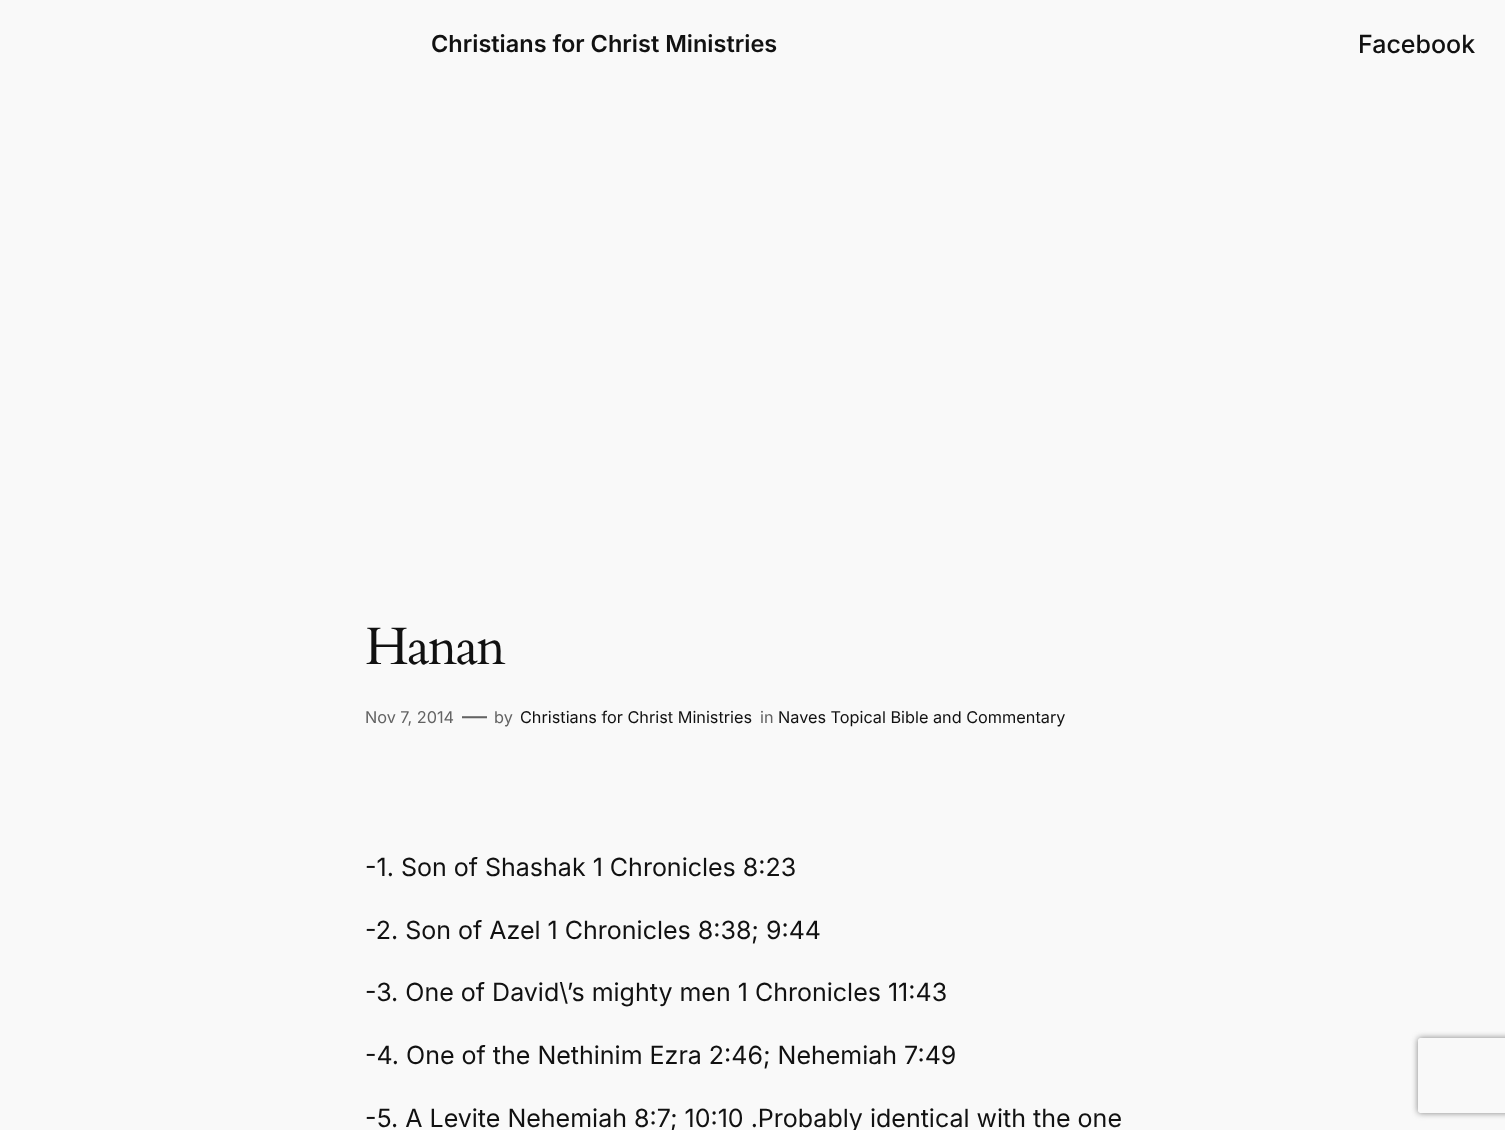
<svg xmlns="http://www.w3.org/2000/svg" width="1505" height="1130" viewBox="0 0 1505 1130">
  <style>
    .t1 { font: 600 23.5px Inter; fill: #111; }
    .t2 { font: 500 25px Inter; fill: #111; }
    .t3 { font: 52.5px Cardo; letter-spacing: -2px; fill: #111; }
    .t4 { font: 16.25px Inter; fill: #636363; }
    .t5 { font: 25px Inter; fill: #636363; }
    .t6 { font: 16.25px Inter; fill: #111; }
    .t7 { font: 25px Inter; fill: #111; }
  </style>
  <defs>
    <clipPath id="clip1"><path d="M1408 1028H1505V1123H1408ZM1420.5 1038H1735.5C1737 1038 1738 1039 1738 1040.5V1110.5C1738 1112 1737 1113 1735.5 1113H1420.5C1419 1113 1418 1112 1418 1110.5V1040.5C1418 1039 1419 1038 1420.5 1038Z" clip-rule="evenodd"/></clipPath>
  </defs>
  <rect width="100%" height="100%" fill="#f9f9f9"/>
  <text x="431" y="52" class="t1">Christians for Christ Ministries</text>
  <text x="1358" y="53" class="t2">Facebook</text>
  <text x="365" y="664" class="t3">Hanan</text>
  <text x="365" y="723" class="t4">Nov 7, 2014</text>
  <text x="462" y="725" class="t5">—</text>
  <text x="494" y="723" class="t4">by</text>
  <text x="520" y="723" class="t6">Christians for Christ Ministries</text>
  <text x="760" y="723" class="t4">in</text>
  <text x="778" y="723" class="t6">Naves Topical Bible and Commentary</text>
  <text x="365" y="876" class="t7">-1. Son of Shashak 1 Chronicles 8:23</text>
  <text x="365" y="939" class="t7">-2. Son of Azel 1 Chronicles 8:38; 9:44</text>
  <text x="365" y="1001" class="t7">-3. One of David\’s mighty men 1 Chronicles 11:43</text>
  <text x="365" y="1064" class="t7">-4. One of the Nethinim Ezra 2:46; Nehemiah 7:49</text>
  <text x="365" y="1127" class="t7">-5. A Levite Nehemiah 8:7; 10:10 .Probably identical with the one</text>
  <g clip-path="url(#clip1)">
    <rect x="1418" y="1038" width="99" height="75" rx="2.5" fill="#808080" filter="blur(3px)"/>
  </g>
</svg>
